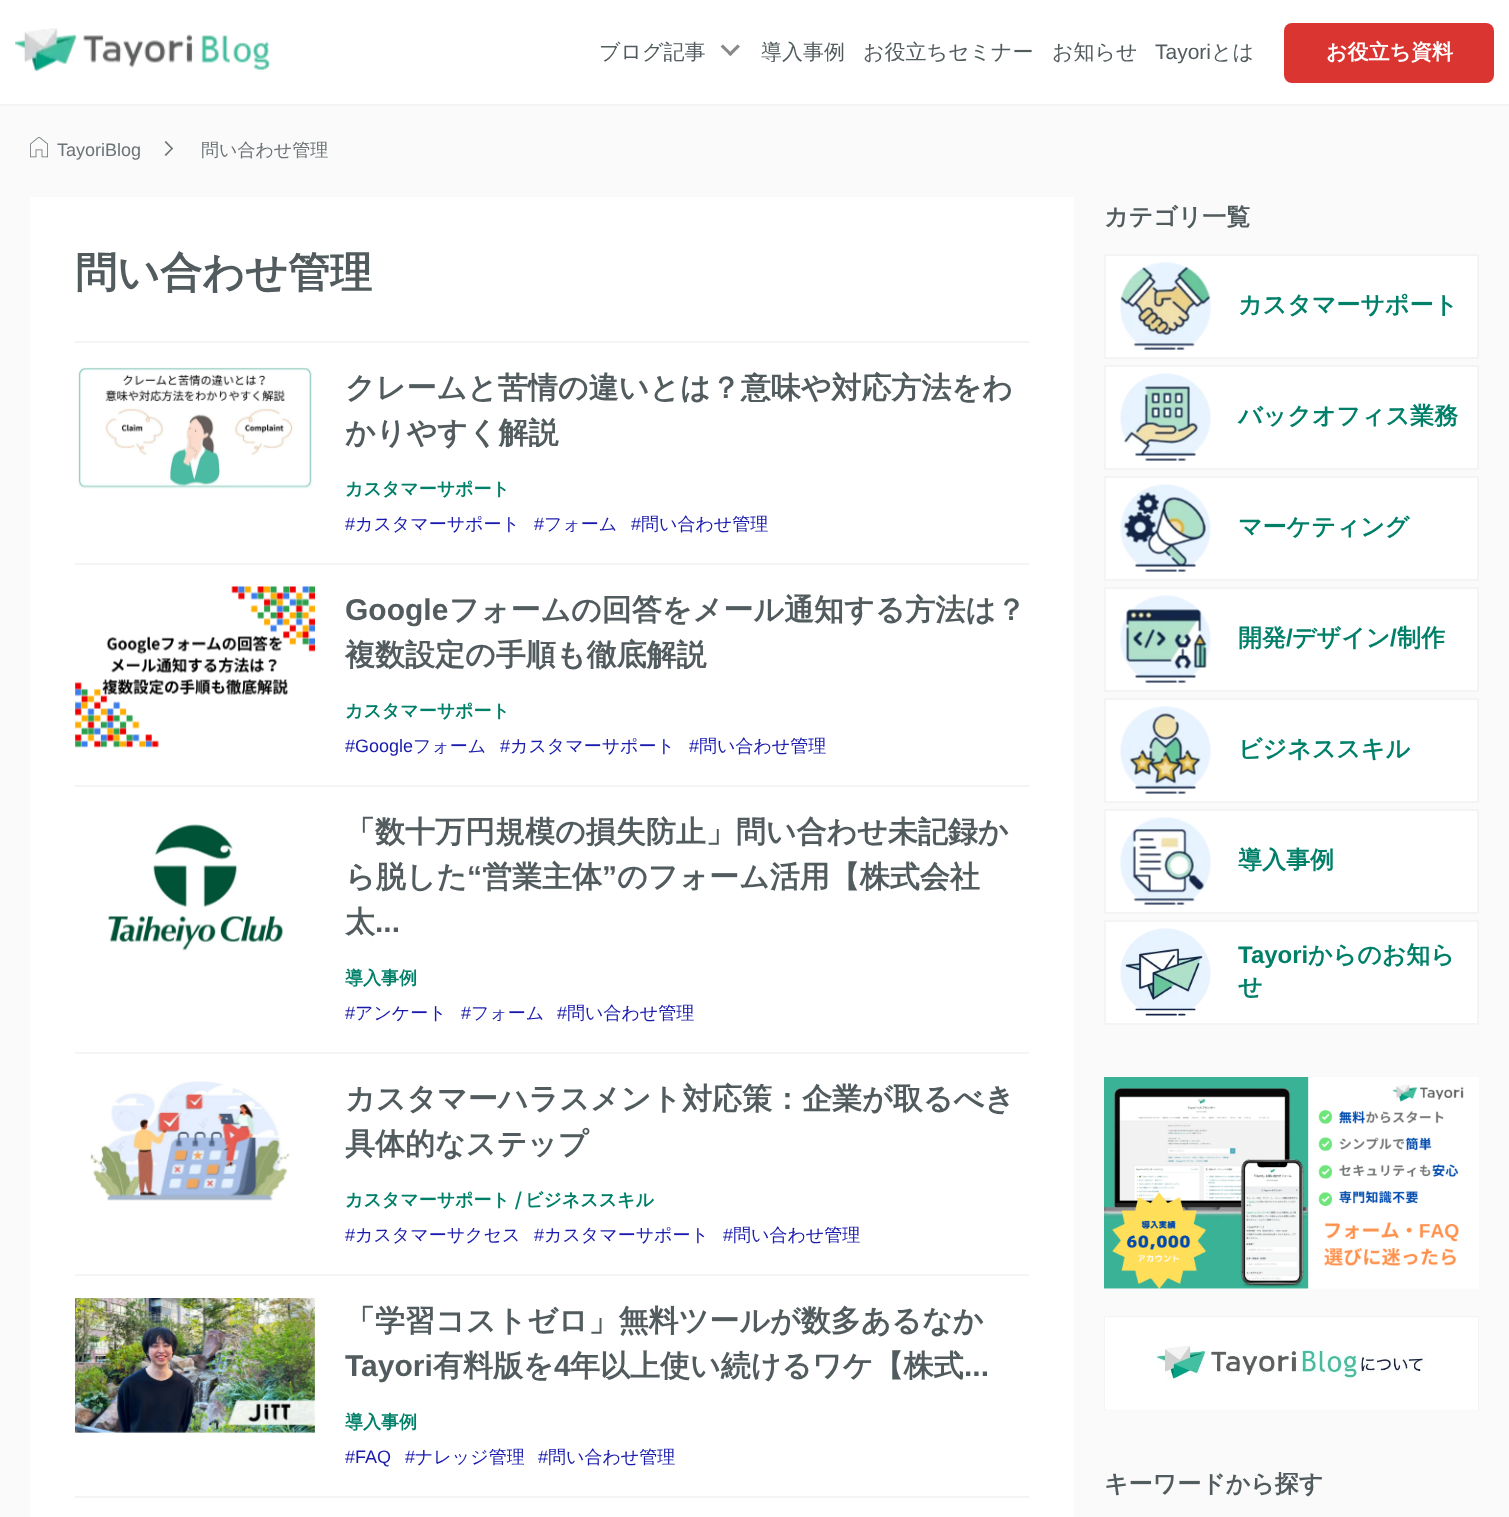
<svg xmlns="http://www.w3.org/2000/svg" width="1509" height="1517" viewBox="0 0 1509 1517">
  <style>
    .t1 { font: 500 21px WenQuanYi Zen Hei; fill: #525c5f; }
    .t2 { font: 21px Liberation Sans; fill: #525c5f; }
    .t3 { font: bold 21px WenQuanYi Zen Hei; fill: #fff; }
    .t4 { font: 18px Liberation Sans; fill: #6b7376; }
    .t5 { font: 500 18px WenQuanYi Zen Hei; fill: #6b7376; }
    .t6 { font: bold 42px WenQuanYi Zen Hei; fill: #525c5f; }
    .t7 { font: bold 30px WenQuanYi Zen Hei; fill: #525c5f; }
    .t8 { font: bold 18px WenQuanYi Zen Hei; fill: #007f69; }
    .t9 { font: 18px Liberation Sans; fill: #1a1aad; }
    .t10 { font: 500 18px WenQuanYi Zen Hei; fill: #1a1aad; }
    .t11 { font: bold 30px Liberation Sans; fill: #525c5f; }
    .t12 { font: 24px Liberation Sans; fill: #007f69; }
    .t13 { font: bold 24px WenQuanYi Zen Hei; fill: #525c5f; }
    .t14 { font: bold 24px WenQuanYi Zen Hei; fill: #007f69; }
    .t15 { font: bold 24px Liberation Sans; fill: #007f69; }
  </style>
  <rect width="100%" height="100%" fill="#fff"/>
  <rect x="0" y="104" width="1509" height="2" fill="#f4f4f4"/>
  <image x="15" y="28" width="255" height="43" href="images/1.png"/>
  <text x="599" y="59" class="t1">ブログ記事</text>
  <path d="M740 46.5L730.5 56L728 54L737.5 44.5Z" fill="#898989"/>
  <path d="M732.5 54L730.5 56L720.5 46.5L723 44.5Z" fill="#898989"/>
  <text x="761" y="59" class="t1">導入事例</text>
  <text x="863" y="59" class="t1">お役立ちセミナー</text>
  <text x="1052" y="59" class="t1">お知らせ</text>
  <text x="1155" y="59" class="t2">Tayori</text>
  <text x="1211" y="59" class="t1">とは</text>
  <rect x="1284" y="23" width="210" height="60" rx="8" fill="#db3532"/>
  <text x="1326" y="59" class="t3">お役立ち資料</text>
  <rect x="0" y="106" width="1509" height="1411" fill="#fafafa"/>
  <image x="30" y="137" width="18" height="21" href="images/2.png"/>
  <text x="57" y="156" class="t4">TayoriBlog</text>
  <path d="M166 141L173 148.5L172 149.5L164.5 142Z" fill="#6b7376"/>
  <path d="M172 147.5L173 148.5L166 156L164.5 155Z" fill="#6b7376"/>
  <text x="201" y="156" class="t5">問い合わせ管理</text>
  <rect x="30" y="197" width="1044" height="1320" fill="#fff"/>
  <rect x="75" y="341" width="954" height="2" fill="#f4f4f4"/>
  <text x="75" y="287" class="t6">問い合わせ管理</text>
  <image x="78" y="367" width="235" height="122" href="images/3.png"/>
  <text x="345" y="398" class="t7">クレームと苦情の違いとは？意味や対応方法をわ</text>
  <text x="345" y="443" class="t7">かりやすく解説</text>
  <text x="345" y="495" class="t8">カスタマーサポート</text>
  <text x="345" y="530" class="t9">#</text>
  <text x="355" y="530" class="t10">カスタマーサポート</text>
  <text x="534" y="530" class="t9">#</text>
  <text x="544" y="530" class="t10">フォーム</text>
  <text x="631" y="530" class="t9">#</text>
  <text x="641" y="530" class="t10">問い合わせ管理</text>
  <rect x="75" y="563" width="954" height="2" fill="#f4f4f4"/>
  <image x="75" y="586" width="240" height="162" href="images/4.png"/>
  <text x="345" y="620" class="t11">Google</text>
  <text x="449" y="620" class="t7">フォームの回答をメール通知する方法は？</text>
  <text x="345" y="665" class="t7">複数設定の手順も徹底解説</text>
  <text x="345" y="717" class="t8">カスタマーサポート</text>
  <text x="345" y="752" class="t9">#Google</text>
  <text x="413" y="752" class="t10">フォーム</text>
  <text x="500" y="752" class="t9">#</text>
  <text x="510" y="752" class="t10">カスタマーサポート</text>
  <text x="689" y="752" class="t9">#</text>
  <text x="699" y="752" class="t10">問い合わせ管理</text>
  <rect x="75" y="785" width="954" height="2" fill="#f4f4f4"/>
  <image x="107" y="824" width="177" height="127" href="images/5.png"/>
  <text x="345" y="842" class="t7">「数十万円規模の損失防止」問い合わせ未記録か</text>
  <text x="345" y="887" class="t7">ら脱した</text>
  <text x="467" y="887" class="t11">“</text>
  <text x="482" y="887" class="t7">営業主体</text>
  <text x="602" y="887" class="t11">”</text>
  <text x="617" y="887" class="t7">のフォーム活用【株式会社</text>
  <text x="345" y="932" class="t7">太</text>
  <text x="375" y="932" class="t11">...</text>
  <text x="345" y="984" class="t8">導入事例</text>
  <text x="345" y="1019" class="t9">#</text>
  <text x="355" y="1019" class="t10">アンケート</text>
  <text x="461" y="1019" class="t9">#</text>
  <text x="471" y="1019" class="t10">フォーム</text>
  <text x="557" y="1019" class="t9">#</text>
  <text x="567" y="1019" class="t10">問い合わせ管理</text>
  <rect x="75" y="1052" width="954" height="2" fill="#f4f4f4"/>
  <image x="90" y="1081" width="200" height="120" href="images/6.png"/>
  <text x="345" y="1109" class="t7">カスタマーハラスメント対応策：企業が取るべき</text>
  <text x="345" y="1154" class="t7">具体的なステップ</text>
  <text x="345" y="1206" class="t8">カスタマーサポート</text>
  <text x="515" y="1209" class="t12">/</text>
  <text x="525" y="1206" class="t8">ビジネススキル</text>
  <text x="345" y="1241" class="t9">#</text>
  <text x="355" y="1241" class="t10">カスタマーサクセス</text>
  <text x="534" y="1241" class="t9">#</text>
  <text x="544" y="1241" class="t10">カスタマーサポート</text>
  <text x="723" y="1241" class="t9">#</text>
  <text x="733" y="1241" class="t10">問い合わせ管理</text>
  <rect x="75" y="1274" width="954" height="2" fill="#f4f4f4"/>
  <image x="75" y="1298" width="240" height="135" href="images/7.png"/>
  <text x="345" y="1331" class="t7">「学習コストゼロ」無料ツールが数多あるなか</text>
  <text x="345" y="1376" class="t11">Tayori</text>
  <text x="433" y="1376" class="t7">有料版を</text>
  <text x="554" y="1376" class="t11">4</text>
  <text x="570" y="1376" class="t7">年以上使い続けるワケ【株式</text>
  <text x="964" y="1376" class="t11">...</text>
  <text x="345" y="1428" class="t8">導入事例</text>
  <text x="345" y="1463" class="t9">#FAQ</text>
  <text x="405" y="1463" class="t9">#</text>
  <text x="415" y="1463" class="t10">ナレッジ管理</text>
  <text x="538" y="1463" class="t9">#</text>
  <text x="548" y="1463" class="t10">問い合わせ管理</text>
  <rect x="75" y="1496" width="954" height="2" fill="#f4f4f4"/>
  <text x="1104" y="225" class="t13">カテゴリ一覧</text>
  <rect x="1105" y="255" width="373" height="103" fill="#fff" stroke="#f4f4f4" stroke-width="2"/>
  <image x="1120" y="262" width="91" height="88" href="images/8.png"/>
  <text x="1238" y="313" class="t14">カスタマーサポート</text>
  <rect x="1105" y="366" width="373" height="103" fill="#fff" stroke="#f4f4f4" stroke-width="2"/>
  <image x="1120" y="373" width="91" height="88" href="images/9.png"/>
  <text x="1238" y="424" class="t14">バックオフィス業務</text>
  <rect x="1105" y="477" width="373" height="103" fill="#fff" stroke="#f4f4f4" stroke-width="2"/>
  <image x="1120" y="484" width="91" height="88" href="images/10.png"/>
  <text x="1238" y="535" class="t14">マーケティング</text>
  <rect x="1105" y="588" width="373" height="103" fill="#fff" stroke="#f4f4f4" stroke-width="2"/>
  <image x="1120" y="595" width="91" height="88" href="images/11.png"/>
  <text x="1238" y="646" class="t14">開発</text>
  <text x="1286" y="646" class="t15">/</text>
  <text x="1292" y="646" class="t14">デザイン</text>
  <text x="1390" y="646" class="t15">/</text>
  <text x="1397" y="646" class="t14">制作</text>
  <rect x="1105" y="699" width="373" height="103" fill="#fff" stroke="#f4f4f4" stroke-width="2"/>
  <image x="1120" y="706" width="91" height="88" href="images/12.png"/>
  <text x="1238" y="757" class="t14">ビジネススキル</text>
  <rect x="1105" y="810" width="373" height="103" fill="#fff" stroke="#f4f4f4" stroke-width="2"/>
  <image x="1120" y="817" width="91" height="88" href="images/13.png"/>
  <text x="1238" y="868" class="t14">導入事例</text>
  <rect x="1105" y="921" width="373" height="103" fill="#fff" stroke="#f4f4f4" stroke-width="2"/>
  <image x="1120" y="928" width="91" height="88" href="images/14.png"/>
  <text x="1238" y="963" class="t15">Tayori</text>
  <text x="1308" y="963" class="t14">からのお知ら</text>
  <text x="1238" y="995" class="t14">せ</text>
  <image x="1104" y="1077" width="375" height="212" href="images/15.png"/>
  <image x="1104" y="1316" width="375" height="95" href="images/16.png"/>
  <text x="1104" y="1492" class="t13">キーワードから探す</text>
</svg>
